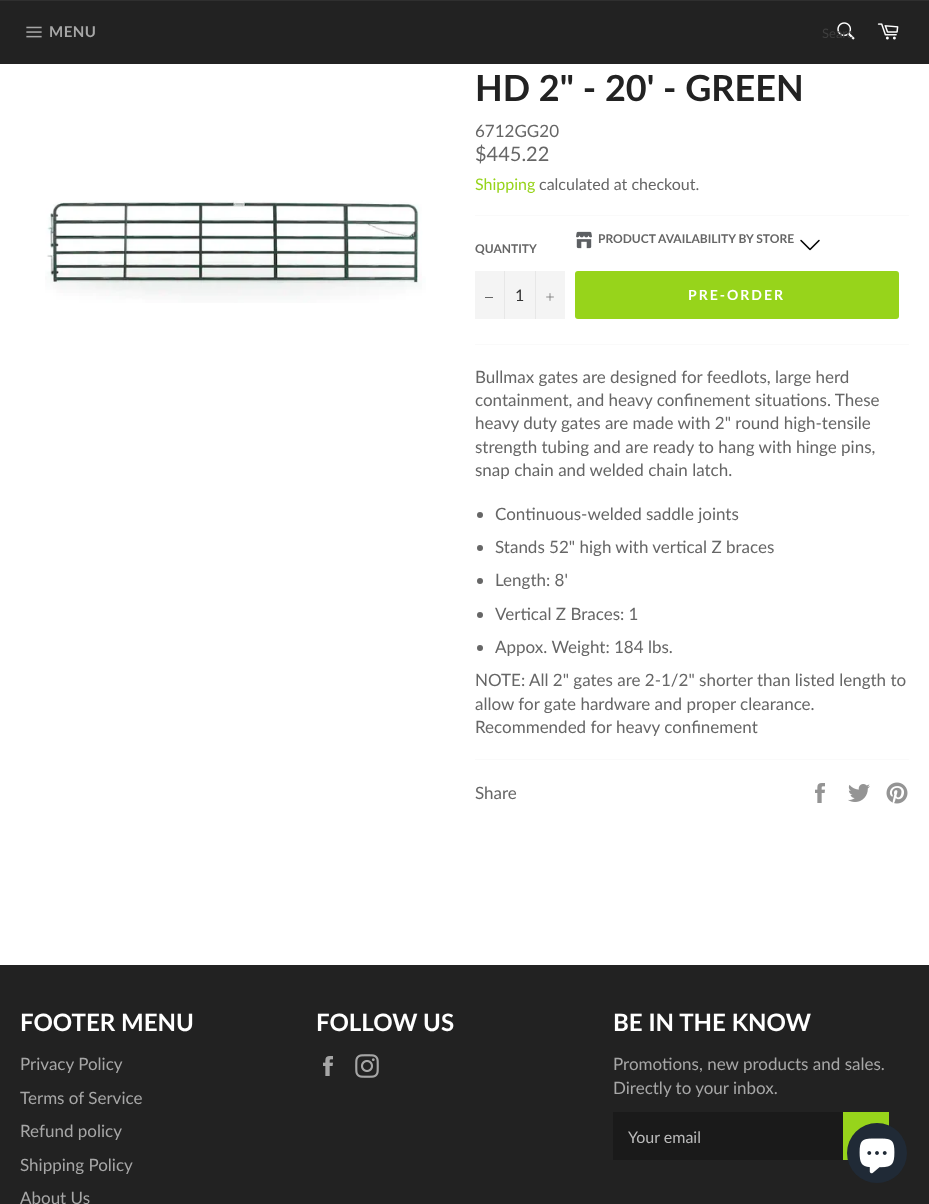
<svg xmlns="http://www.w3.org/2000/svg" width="929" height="1204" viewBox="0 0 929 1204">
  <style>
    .t1 { font: bold 15px Lato; letter-spacing: 0.5px; fill: #a7a7a7; }
    .t2 { font: 13px Lato; fill: #3e3e3e; }
    .t3 { font: bold 36px Lato; fill: #222; }
    .t4 { font: 17px Lato; fill: #666; }
    .t5 { font: 20px Lato; fill: #666; }
    .t6 { font: 16px Lato; fill: #97d41b; }
    .t7 { font: 16px Lato; fill: #666; }
    .t8 { font: bold 12px Lato; fill: #666; }
    .t9 { font: 16px Lato; fill: #333; }
    .t10 { font: bold 14px Lato; letter-spacing: 2px; fill: #fff; }
    .t11 { font: bold 24px Lato; fill: #fff; }
    .t12 { font: 17px Lato; fill: #a7a7a7; }
    .t13 { font: 16px Lato; fill: #bababa; }
  </style>
  <rect width="100%" height="100%" fill="#fff"/>
  <rect x="0" y="1" width="929" height="63" fill="#222"/>
  <rect x="0" y="0" width="929" height="1" fill="#2f2f2f"/>
  <image x="26" y="26" width="16" height="12" href="images/1.png"/>
  <text x="49" y="37" class="t1">MENU</text>
  <image x="837" y="22" width="18" height="18" href="images/2.png"/>
  <text x="822" y="38" class="t2">Searc</text>
  <image x="877" y="23" width="22" height="17" href="images/3.png"/>
  <image x="45" y="200" width="381" height="103" href="images/4.png"/>
  <text x="475" y="101" class="t3">HD 2" - 20' - GREEN</text>
  <text x="475" y="137" class="t4">6712GG20</text>
  <text x="475" y="161" class="t5">$445.22</text>
  <text x="475" y="190" class="t6">Shipping</text>
  <text x="539" y="190" class="t7">calculated at checkout.</text>
  <rect x="475" y="215" width="434" height="1" fill="#fafafa"/>
  <text x="475" y="253" class="t8">QUANTITY</text>
  <rect x="475" y="271" width="90" height="48" fill="#f4f4f4"/>
  <rect x="504" y="271" width="1" height="48" fill="#e7e7e7"/>
  <rect x="485" y="297" width="8" height="1" fill="#666"/>
  <text x="515" y="301" class="t9">1</text>
  <rect x="535" y="271" width="1" height="48" fill="#e7e7e7"/>
  <image x="546" y="293" width="8" height="8" href="images/5.png"/>
  <image x="576" y="231" width="16" height="18" href="images/6.png"/>
  <text x="598" y="243" class="t8">PRODUCT AVAILABILITY BY STORE</text>
  <image x="800" y="239" width="20" height="12" href="images/7.png"/>
  <rect x="575" y="271" width="324" height="48" rx="3" fill="#97d41b"/>
  <text x="688" y="300" class="t10">PRE-ORDER</text>
  <rect x="475" y="344" width="434" height="1" fill="#fafafa"/>
  <text x="475" y="383" class="t4">Bullmax gates are designed for feedlots, large herd</text>
  <text x="475" y="406" class="t4">containment, and heavy confinement situations. These</text>
  <text x="475" y="429" class="t4">heavy duty gates are made with 2" round high-tensile</text>
  <text x="475" y="453" class="t4">strength tubing and are ready to hang with hinge pins,</text>
  <text x="475" y="476" class="t4">snap chain and welded chain latch.</text>
  <circle cx="480" cy="515" r="3" fill="#666"/>
  <text x="495" y="520" class="t4">Continuous-welded saddle joints</text>
  <circle cx="480" cy="548" r="3" fill="#666"/>
  <text x="495" y="553" class="t4">Stands 52" high with vertical Z braces</text>
  <circle cx="480" cy="581" r="3" fill="#666"/>
  <text x="495" y="586" class="t4">Length: 8'</text>
  <circle cx="480" cy="615" r="3" fill="#666"/>
  <text x="495" y="620" class="t4">Vertical Z Braces: 1</text>
  <circle cx="480" cy="648" r="3" fill="#666"/>
  <text x="495" y="653" class="t4">Appox. Weight: 184 lbs.</text>
  <text x="475" y="686" class="t4">NOTE: All 2" gates are 2-1/2" shorter than listed length to</text>
  <text x="475" y="710" class="t4">allow for gate hardware and proper clearance.</text>
  <text x="475" y="733" class="t4">Recommended for heavy confinement</text>
  <rect x="475" y="759" width="434" height="1" fill="#fafafa"/>
  <text x="475" y="799" class="t4">Share</text>
  <image x="815" y="783" width="10" height="20" href="images/8.png"/>
  <image x="848" y="784" width="22" height="18" href="images/9.png"/>
  <image x="886" y="782" width="22" height="22" href="images/10.png"/>
  <rect x="0" y="965" width="929" height="239" fill="#222"/>
  <text x="20" y="1031" class="t11">FOOTER MENU</text>
  <text x="20" y="1070" class="t12">Privacy Policy</text>
  <text x="20" y="1104" class="t12">Terms of Service</text>
  <text x="20" y="1137" class="t12">Refund policy</text>
  <text x="20" y="1171" class="t12">Shipping Policy</text>
  <text x="20" y="1204" class="t12">About Us</text>
  <text x="316" y="1031" class="t11">FOLLOW US</text>
  <image x="323" y="1056" width="10" height="20" href="images/11.png"/>
  <image x="355" y="1054" width="24" height="24" href="images/12.png"/>
  <text x="613" y="1031" class="t11">BE IN THE KNOW</text>
  <text x="613" y="1070" class="t12">Promotions, new products and sales.</text>
  <text x="613" y="1094" class="t12">Directly to your inbox.</text>
  <rect x="613" y="1112" width="230" height="48" fill="#1a1a1a"/>
  <text x="628" y="1143" class="t13">Your email</text>
  <rect x="843" y="1112" width="46" height="48" fill="#97d41b"/>
  <circle cx="877" cy="1153" r="30" fill="#202a36"/>
  <image x="859" y="1138" width="36" height="36" href="images/13.png"/>
</svg>
